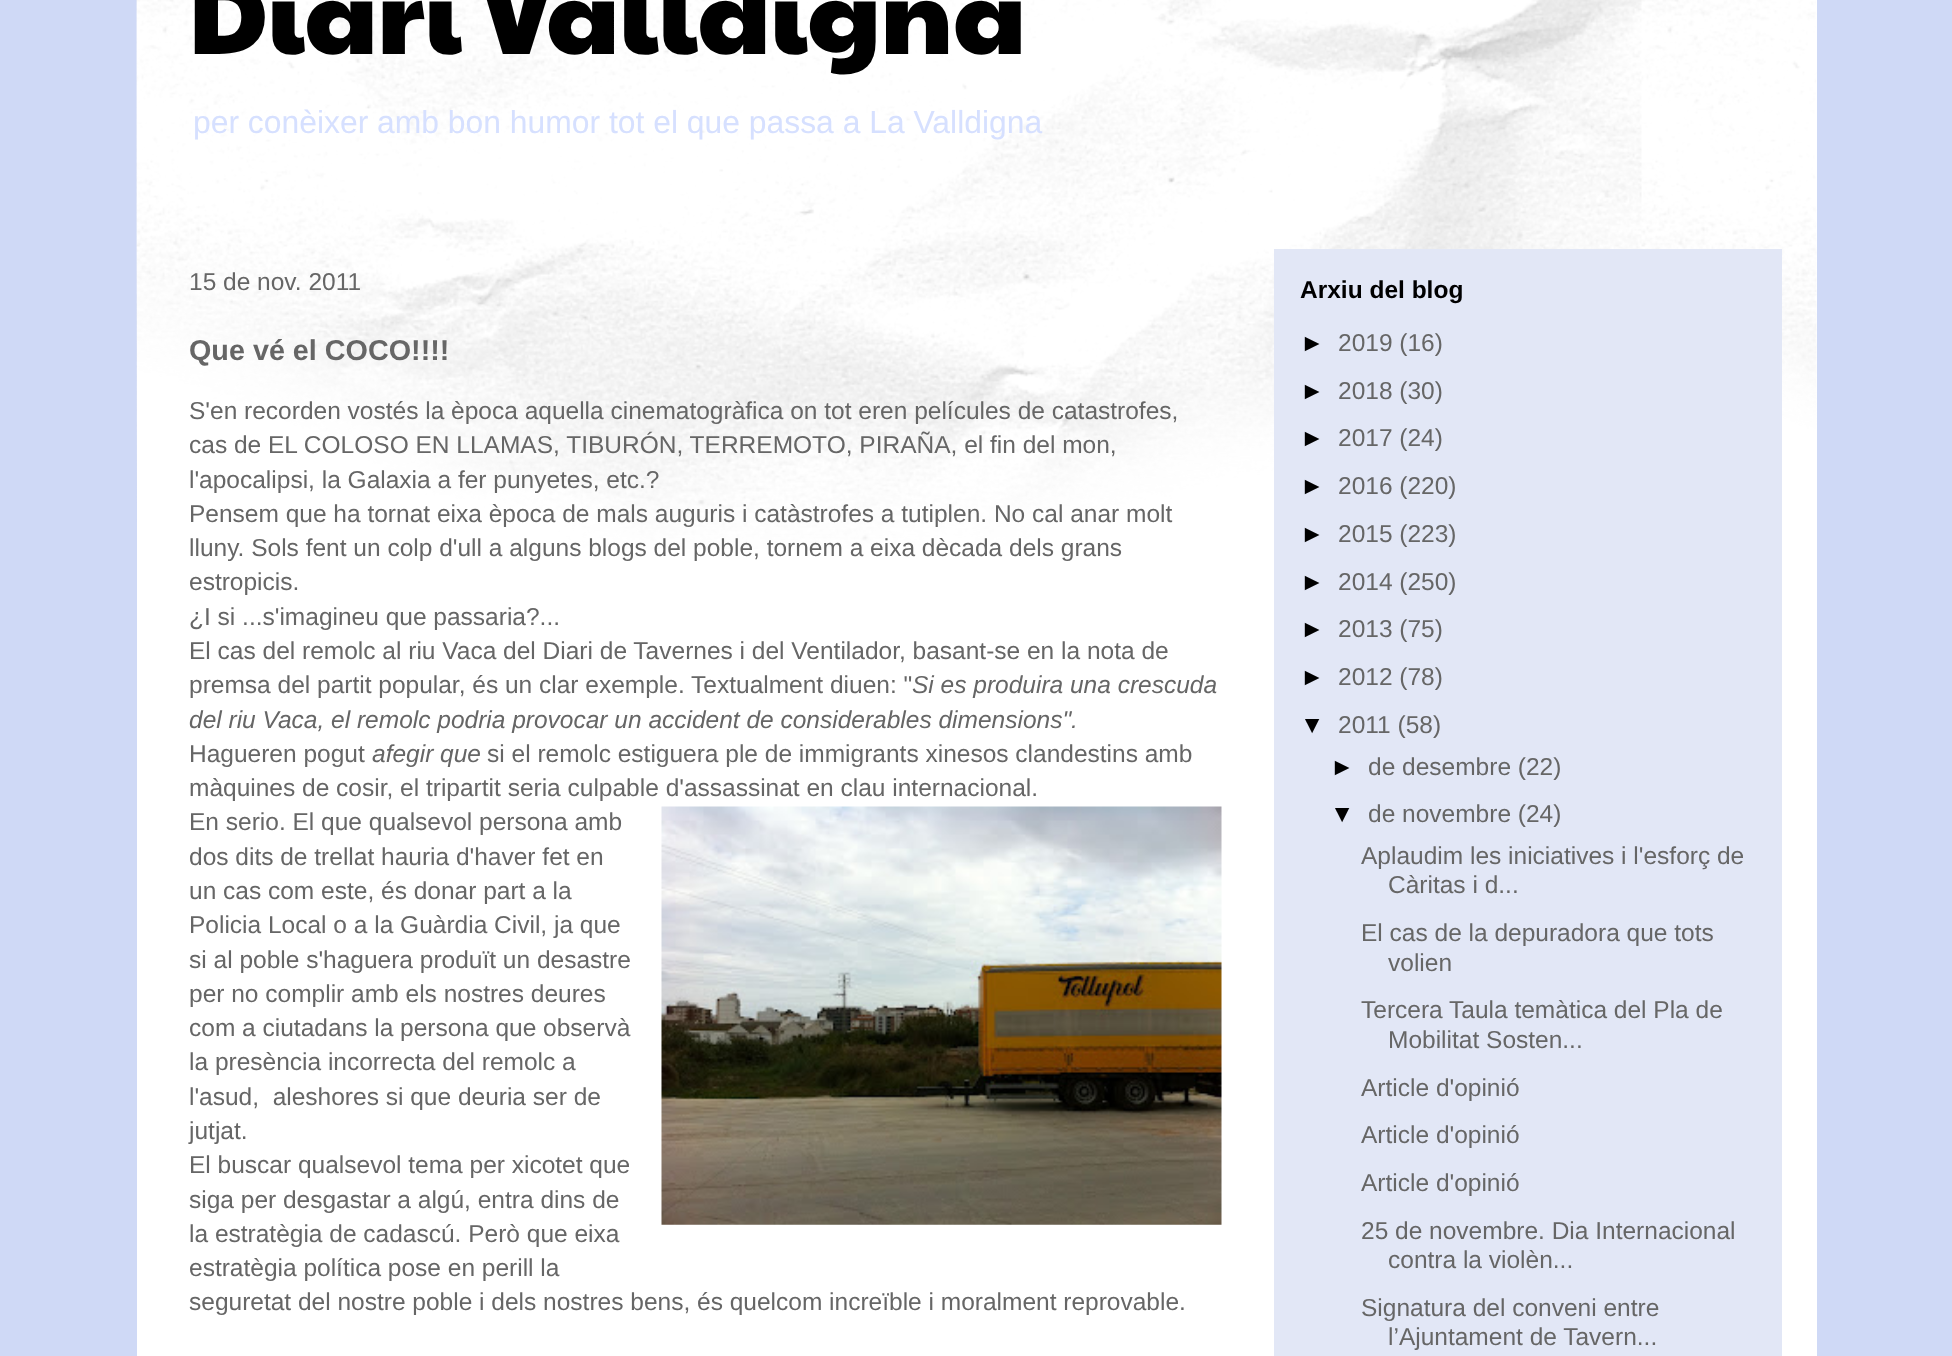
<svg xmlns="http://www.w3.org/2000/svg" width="1952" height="1356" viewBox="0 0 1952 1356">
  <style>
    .t1 { font: 105px Paytone One; fill: #000; }
    .t2 { font: 31.85px Liberation Sans; fill: #d6e0ff; }
    .t3 { font: 24.5px Liberation Sans; fill: #666; }
    .t4 { font: bold 28.75px Liberation Sans; fill: #666; }
    .t5 { font: italic 24.5px Liberation Sans; fill: #666; }
    .t6 { font: bold 24.5px Liberation Sans; fill: #000; }
    .t7 { font: 24.5px Liberation Sans; fill: #000; }
  </style>
  <rect width="100%" height="100%" fill="#cfd9f6"/>
  <rect x="137" y="0" width="1680" height="1356" fill="#fff"/>
  <image x="136" y="0" width="1681" height="549" href="images/1.png"/>
  <text x="189" y="54" class="t1">Diari Valldigna</text>
  <text x="193" y="133" class="t2">per conèixer amb bon humor tot el que passa a La Valldigna</text>
  <rect x="1274" y="249" width="508" height="1107" fill="#e2e7f6"/>
  <text x="189" y="290" class="t3">15 de nov. 2011</text>
  <text x="189" y="360" class="t4">Que vé el COCO!!!!</text>
  <text x="189" y="419" class="t3">S'en recorden vostés la època aquella cinematogràfica on tot eren películes de catastrofes,</text>
  <text x="189" y="453" class="t3">cas de EL COLOSO EN LLAMAS, TIBURÓN, TERREMOTO, PIRAÑA, el fin del mon,</text>
  <text x="189" y="488" class="t3">l'apocalipsi, la Galaxia a fer punyetes, etc.?</text>
  <text x="189" y="522" class="t3">Pensem que ha tornat eixa època de mals auguris i catàstrofes a tutiplen. No cal anar molt</text>
  <text x="189" y="556" class="t3">lluny. Sols fent un colp d'ull a alguns blogs del poble, tornem a eixa dècada dels grans</text>
  <text x="189" y="590" class="t3">estropicis.</text>
  <text x="189" y="625" class="t3">¿I si ...s'imagineu que passaria?...</text>
  <text x="189" y="659" class="t3">El cas del remolc al riu Vaca del Diari de Tavernes i del Ventilador, basant-se en la nota de</text>
  <text x="189" y="693" class="t3">premsa del partit popular, és un clar exemple. Textualment diuen: "</text>
  <text x="912" y="693" class="t5">Si es produira una crescuda</text>
  <text x="189" y="728" class="t5">del riu Vaca, el remolc podria provocar un accident de considerables dimensions".</text>
  <text x="189" y="762" class="t3">Hagueren pogut</text>
  <text x="372" y="762" class="t5">afegir que</text>
  <text x="487" y="762" class="t3">si el remolc estiguera ple de immigrants xinesos clandestins amb</text>
  <text x="189" y="796" class="t3">màquines de cosir, el tripartit seria culpable d'assassinat en clau internacional.</text>
  <text x="189" y="830" class="t3">En serio. El que qualsevol persona amb</text>
  <image x="661" y="806" width="561" height="419" href="images/2.png"/>
  <text x="189" y="865" class="t3">dos dits de trellat hauria d'haver fet en</text>
  <text x="189" y="899" class="t3">un cas com este, és donar part a la</text>
  <text x="189" y="933" class="t3">Policia Local o a la Guàrdia Civil, ja que</text>
  <text x="189" y="968" class="t3">si al poble s'haguera produït un desastre</text>
  <text x="189" y="1002" class="t3">per no complir amb els nostres deures</text>
  <text x="189" y="1036" class="t3">com a ciutadans la persona que observà</text>
  <text x="189" y="1070" class="t3">la presència incorrecta del remolc a</text>
  <text x="189" y="1105" class="t3" xml:space="preserve">l'asud,  aleshores si que deuria ser de</text>
  <text x="189" y="1139" class="t3">jutjat.</text>
  <text x="189" y="1173" class="t3">El buscar qualsevol tema per xicotet que</text>
  <text x="189" y="1208" class="t3">siga per desgastar a algú, entra dins de</text>
  <text x="189" y="1242" class="t3">la estratègia de cadascú. Però que eixa</text>
  <text x="189" y="1276" class="t3">estratègia política pose en perill la</text>
  <text x="189" y="1310" class="t3">seguretat del nostre poble i dels nostres bens, és quelcom increïble i moralment reprovable.</text>
  <text x="1300" y="298" class="t6">Arxiu del blog</text>
  <text x="1300" y="351" class="t7">►</text>
  <text x="1338" y="351" class="t3">2019 (16)</text>
  <text x="1300" y="399" class="t7">►</text>
  <text x="1338" y="399" class="t3">2018 (30)</text>
  <text x="1300" y="446" class="t7">►</text>
  <text x="1338" y="446" class="t3">2017 (24)</text>
  <text x="1300" y="494" class="t7">►</text>
  <text x="1338" y="494" class="t3">2016 (220)</text>
  <text x="1300" y="542" class="t7">►</text>
  <text x="1338" y="542" class="t3">2015 (223)</text>
  <text x="1300" y="590" class="t7">►</text>
  <text x="1338" y="590" class="t3">2014 (250)</text>
  <text x="1300" y="637" class="t7">►</text>
  <text x="1338" y="637" class="t3">2013 (75)</text>
  <text x="1300" y="685" class="t7">►</text>
  <text x="1338" y="685" class="t3">2012 (78)</text>
  <text x="1300" y="733" class="t7">▼</text>
  <text x="1338" y="733" class="t3">2011 (58)</text>
  <text x="1330" y="775" class="t7">►</text>
  <text x="1368" y="775" class="t3">de desembre (22)</text>
  <text x="1330" y="822" class="t7">▼</text>
  <text x="1368" y="822" class="t3">de novembre (24)</text>
  <text x="1361" y="864" class="t3">Aplaudim les iniciatives i l'esforç de</text>
  <text x="1388" y="893" class="t3">Càritas i d...</text>
  <text x="1361" y="941" class="t3">El cas de la depuradora que tots</text>
  <text x="1388" y="971" class="t3">volien</text>
  <text x="1361" y="1018" class="t3">Tercera Taula temàtica del Pla de</text>
  <text x="1388" y="1048" class="t3">Mobilitat Sosten...</text>
  <text x="1361" y="1096" class="t3">Article d'opinió</text>
  <text x="1361" y="1143" class="t3">Article d'opinió</text>
  <text x="1361" y="1191" class="t3">Article d'opinió</text>
  <text x="1361" y="1239" class="t3">25 de novembre. Dia Internacional</text>
  <text x="1388" y="1268" class="t3">contra la violèn...</text>
  <text x="1361" y="1316" class="t3">Signatura del conveni entre</text>
  <text x="1388" y="1345" class="t3">l’Ajuntament de Tavern...</text>
</svg>
